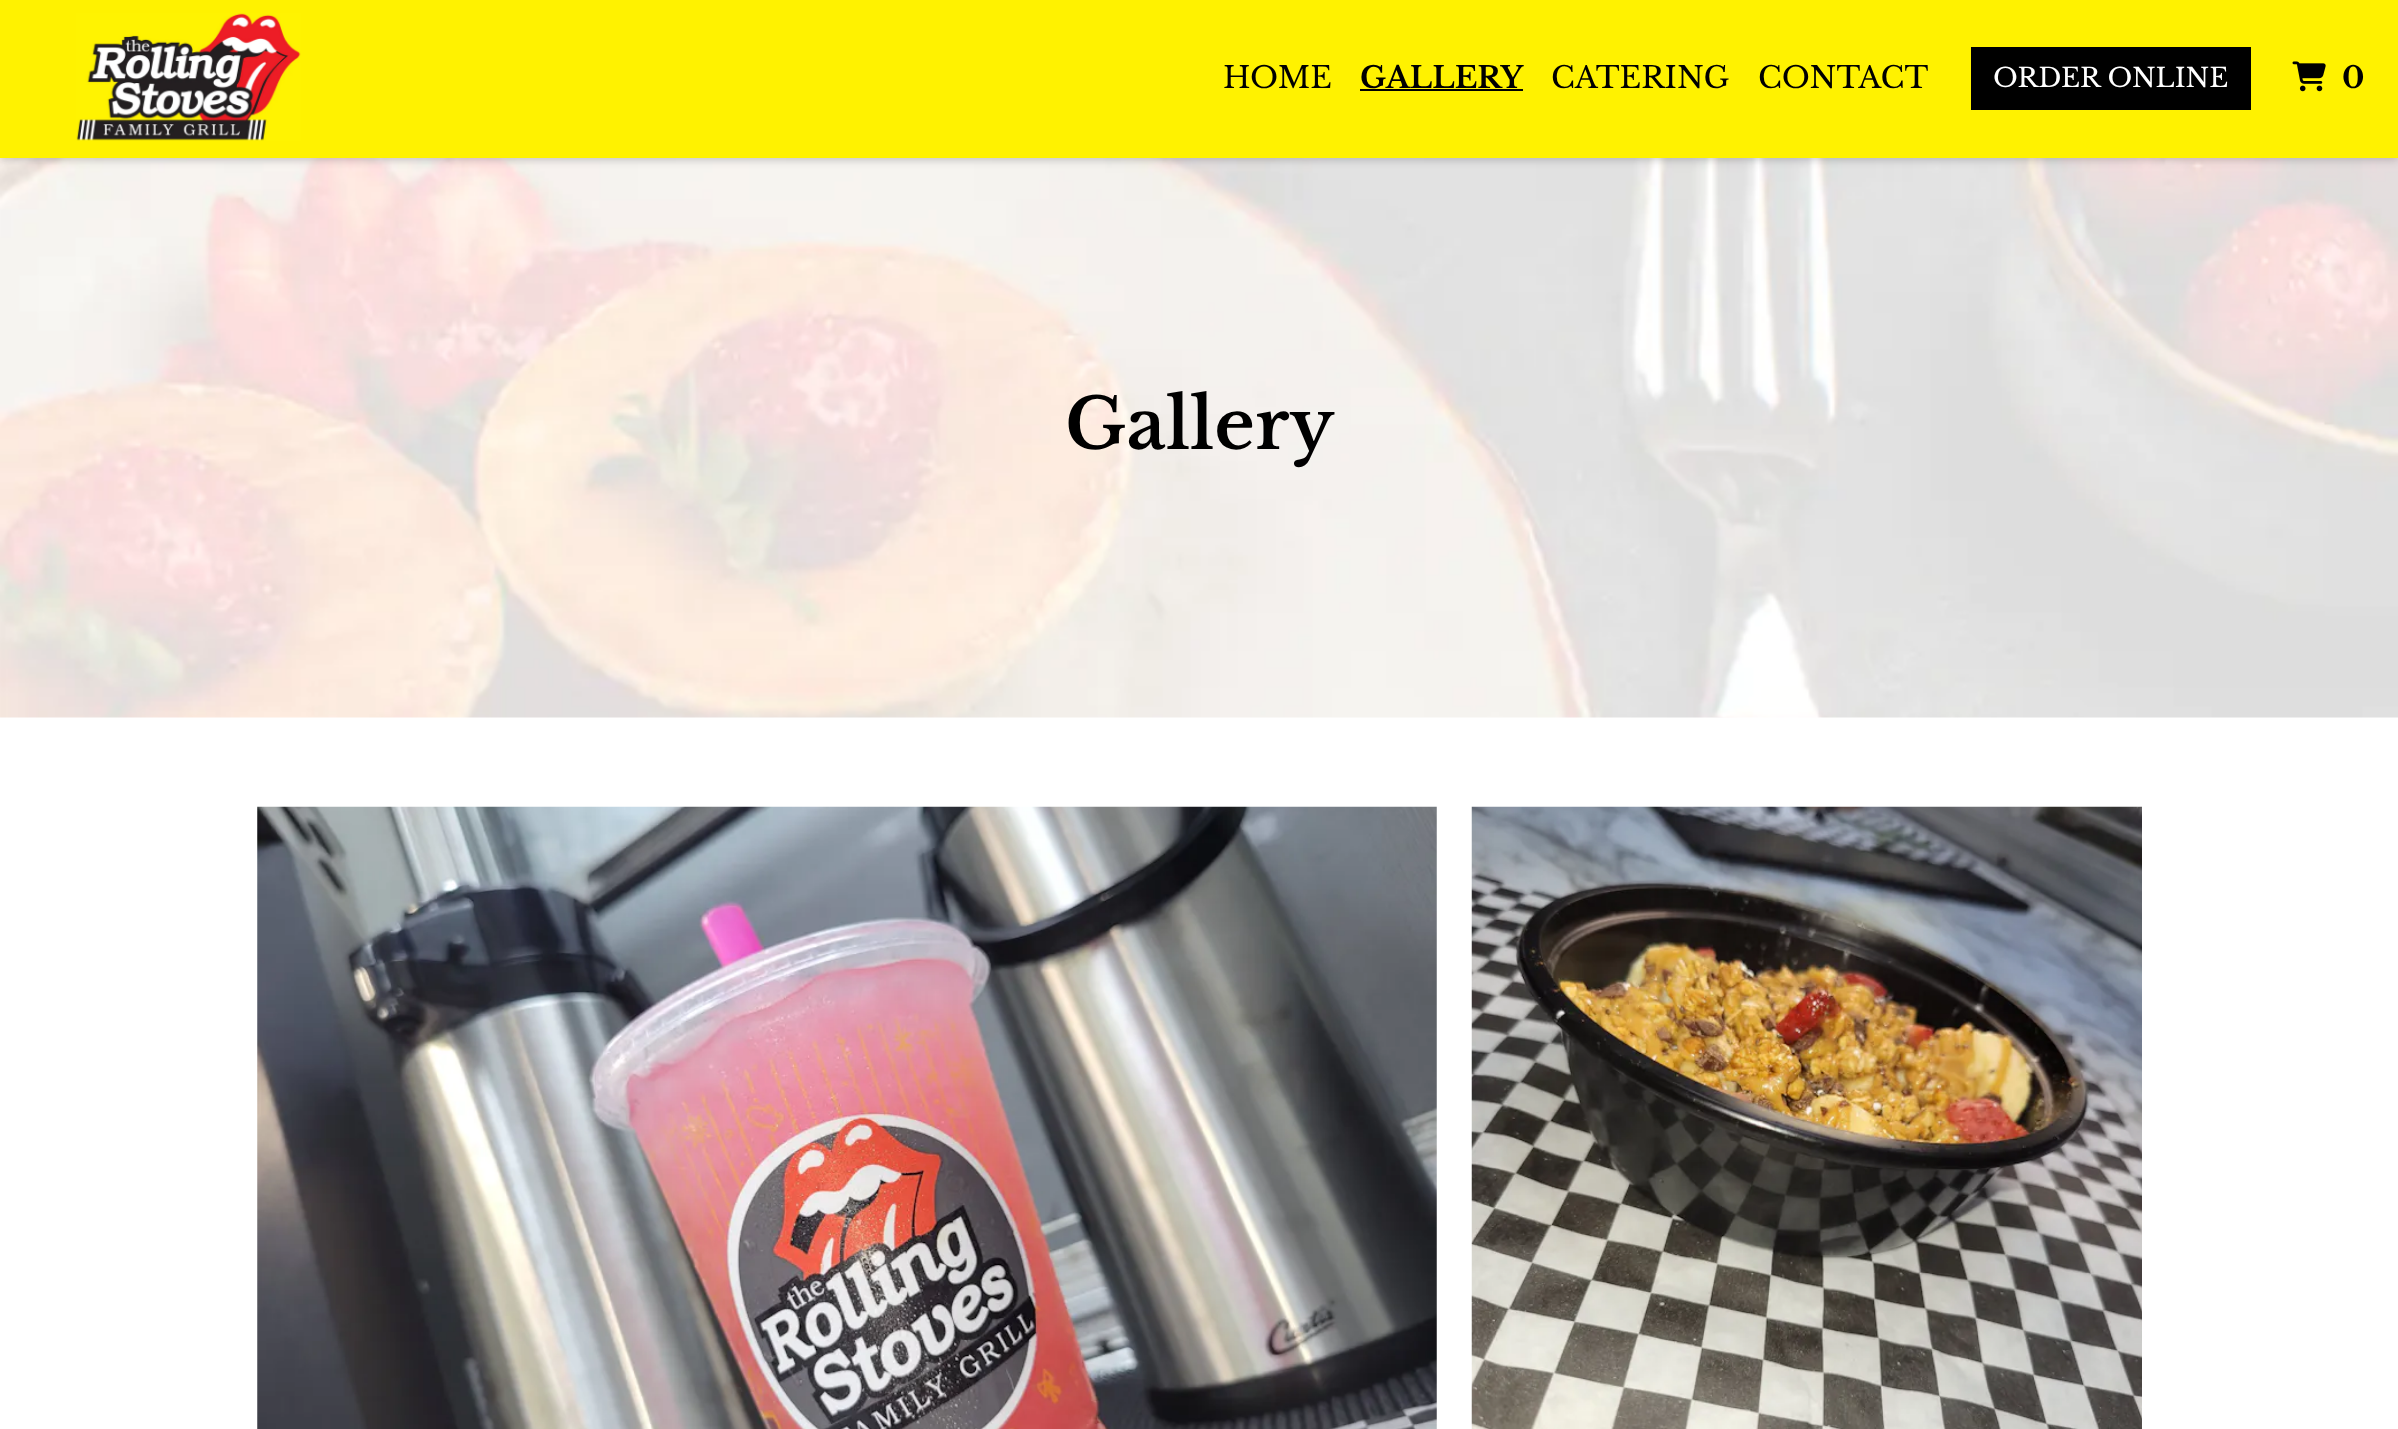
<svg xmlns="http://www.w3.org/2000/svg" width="2398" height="1429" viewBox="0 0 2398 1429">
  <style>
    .t1 { font: 29.75px Libre Baskerville; fill: #000; }
    .t2 { font: bold 29.75px Libre Baskerville; fill: #000; }
    .t3 { font: 26.25px Libre Baskerville; fill: #fff; }
    .t4 { font: 600 70px Libre Baskerville; fill: #000; }
  </style>
  <rect width="100%" height="100%" fill="#fff"/>
  <image x="0" y="158" width="2398" height="560" href="images/3.png"/>
  <rect x="0" y="2" width="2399" height="157" fill="#20212447" filter="blur(5px)"/>
  <rect x="0" y="0" width="2398" height="158" fill="#fff200"/>
  <image x="76" y="13" width="225" height="128" href="images/1.png"/>
  <text x="1223" y="88" class="t1">HOME</text>
  <text x="1360" y="88" class="t2">GALLERY</text>
  <rect x="1360" y="89" width="163" height="2" fill="#000"/>
  <text x="1551" y="88" class="t1">CATERING</text>
  <text x="1758" y="88" class="t1">CONTACT</text>
  <rect x="1971" y="47" width="280" height="63" fill="#000"/>
  <text x="1993" y="87" class="t3">ORDER ONLINE</text>
  <image x="2292" y="61" width="34" height="31" href="images/2.png"/>
  <text x="2342" y="88" class="t2">0</text>
  <text x="1065" y="449" class="t4">Gallery</text>
  <image x="257" y="806" width="1180" height="623" href="images/4.png"/>
  <image x="1471" y="806" width="671" height="623" href="images/5.png"/>
</svg>
